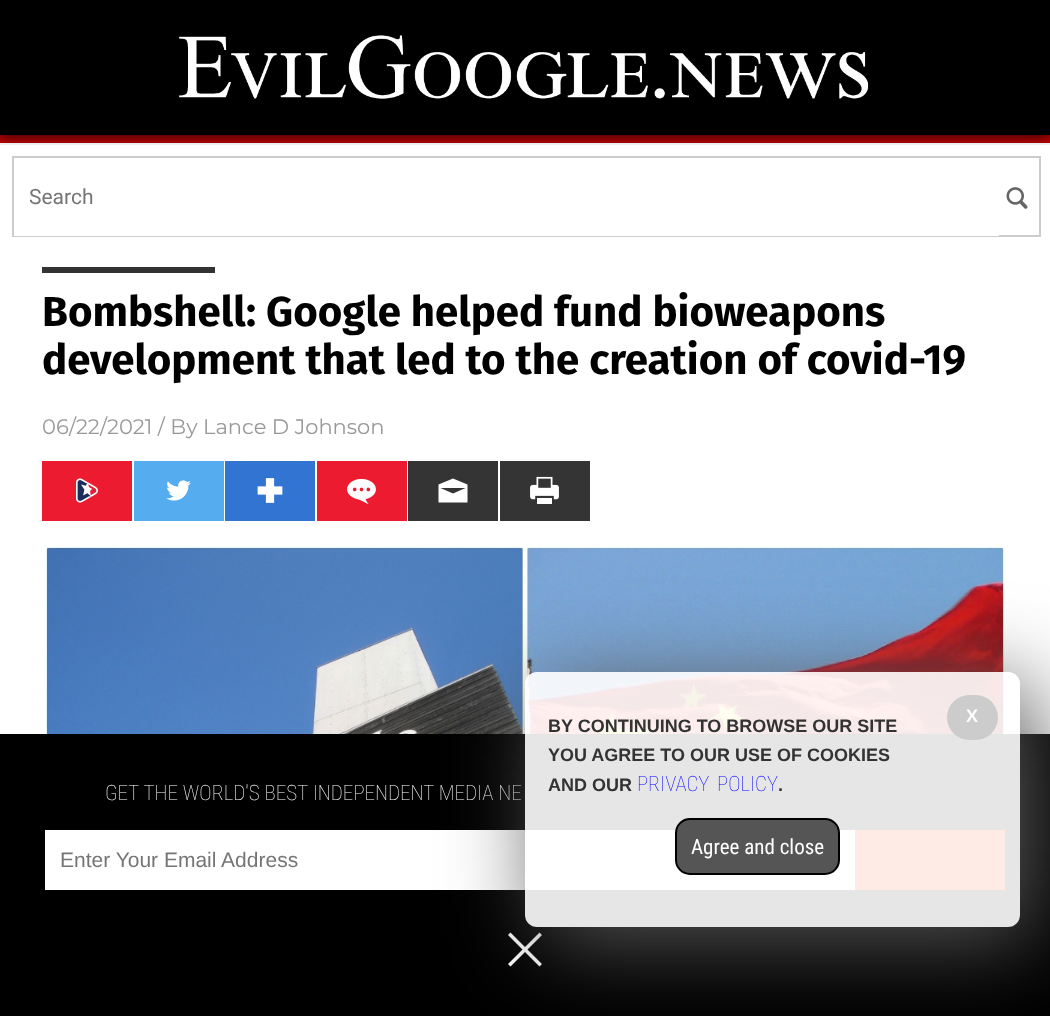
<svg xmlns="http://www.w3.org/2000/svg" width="1050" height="1016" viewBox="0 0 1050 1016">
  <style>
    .t1 { font: 21px Roboto; fill: #757575; }
    .t2 { font: bold 42px Fira Sans; fill: #000; }
    .t3 { font: 21px Montserrat; fill: #999; }
    .t4 { font: 100 21px Roboto Condensed; fill: #fff; }
    .t5 { font: 21px Liberation Sans; fill: #757575; }
    .t6 { font: bold 18px Liberation Sans; fill: #fff; }
    .t7 { font: bold 18px Liberation Sans; fill: #333; }
    .t8 { font: 100 21px Roboto Condensed; fill: #00f; }
    .t9 { font: 21px Roboto Condensed; fill: #fff; }
  </style>
  <defs>
    <clipPath id="clip1"><path d="M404 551H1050V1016H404ZM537 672H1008C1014.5 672 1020 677.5 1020 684V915C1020 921.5 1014.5 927 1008 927H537C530.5 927 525 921.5 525 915V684C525 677.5 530.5 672 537 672Z" clip-rule="evenodd"/></clipPath>
  </defs>
  <rect width="100%" height="100%" fill="#c00"/>
  <rect x="-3" y="-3" width="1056" height="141" fill="#000000bf" filter="blur(7.5px)"/>
  <rect x="0" y="0" width="1050" height="135" fill="#000"/>
  <image x="179" y="35" width="690" height="64" href="images/1.png"/>
  <rect x="0" y="145" width="1050" height="589" fill="#fff"/>
  <rect x="0" y="143" width="1050" height="2" fill="#ececec"/>
  <rect x="13" y="157" width="1027" height="79" fill="none" stroke="#ccc" stroke-width="2"/>
  <rect x="14" y="235" width="985" height="1" fill="#fff"/>
  <text x="29" y="204" class="t1">Search</text>
  <image x="1006" y="187" width="22" height="22" href="images/2.png"/>
  <rect x="42" y="267" width="173" height="6" fill="#333"/>
  <text x="42" y="326" class="t2">Bombshell: Google helped fund bioweapons</text>
  <text x="42" y="374" class="t2">development that led to the creation of covid-19</text>
  <text x="42" y="434" class="t3">06/22/2021 / By Lance D Johnson</text>
  <rect x="42" y="461" width="90" height="60" fill="#ed1b2f"/>
  <image x="76" y="478" width="22" height="25" href="images/3.png"/>
  <rect x="134" y="461" width="90" height="60" fill="#55acef"/>
  <image x="166" y="480" width="25" height="21" href="images/4.png"/>
  <rect x="225" y="461" width="90" height="60" fill="#3274d1"/>
  <image x="257" y="478" width="26" height="25" href="images/5.png"/>
  <rect x="317" y="461" width="90" height="60" fill="#ed1b2f"/>
  <image x="347" y="478" width="29" height="27" href="images/6.png"/>
  <rect x="408" y="461" width="90" height="60" fill="#343434"/>
  <path d="M453 478.5L438.5 484.5V502.5H467.5V484.5ZM453 493.5L440.5 488H465.5Z" fill="#fff"/>
  <rect x="500" y="461" width="90" height="60" fill="#343434"/>
  <image x="530" y="476" width="29" height="28" href="images/7.png"/>
  <image x="45" y="546" width="960" height="188" href="images/8.png"/>
  <rect x="0" y="734" width="1050" height="282" fill="#000"/>
  <text x="105" y="800" word-spacing="0.25" class="t4">GET THE WORLD'S BEST INDEPENDENT MEDIA NE</text>
  <rect x="45" y="830" width="810" height="60" fill="#fff"/>
  <text x="60" y="867" class="t5">Enter Your Email Address</text>
  <rect x="855" y="830" width="150" height="60" fill="#f30"/>
  <path d="M542 935L539.5 932.5L525 947L510.5 932.5L508 935L522.5 949.5L508 964L510.5 966.5L525 952L539.5 966.5L542 964L527.5 949.5Z" fill="#fff"/>
  <g clip-path="url(#clip1)">
    <rect x="540" y="687" width="495" height="255" rx="12" fill="#555" filter="blur(45px)"/>
  </g>
  <rect x="525" y="672" width="495" height="255" rx="12" fill="#ffffffe6"/>
  <rect x="947" y="695" width="51" height="45" rx="22.5" fill="#ccc"/>
  <text x="966" y="722" class="t6">X</text>
  <text x="548" y="732" class="t7">BY CONTINUING TO BROWSE OUR SITE</text>
  <text x="548" y="761" class="t7">YOU AGREE TO OUR USE OF COOKIES</text>
  <text x="548" y="791" class="t7">AND OUR</text>
  <text x="637" y="791" word-spacing="3" class="t8">PRIVACY POLICY</text>
  <text x="778" y="791" class="t7">.</text>
  <rect x="676" y="819" width="163" height="55" rx="14" fill="#555" stroke="#000" stroke-width="2"/>
  <text x="691" y="854" class="t9">Agree and close</text>
</svg>
